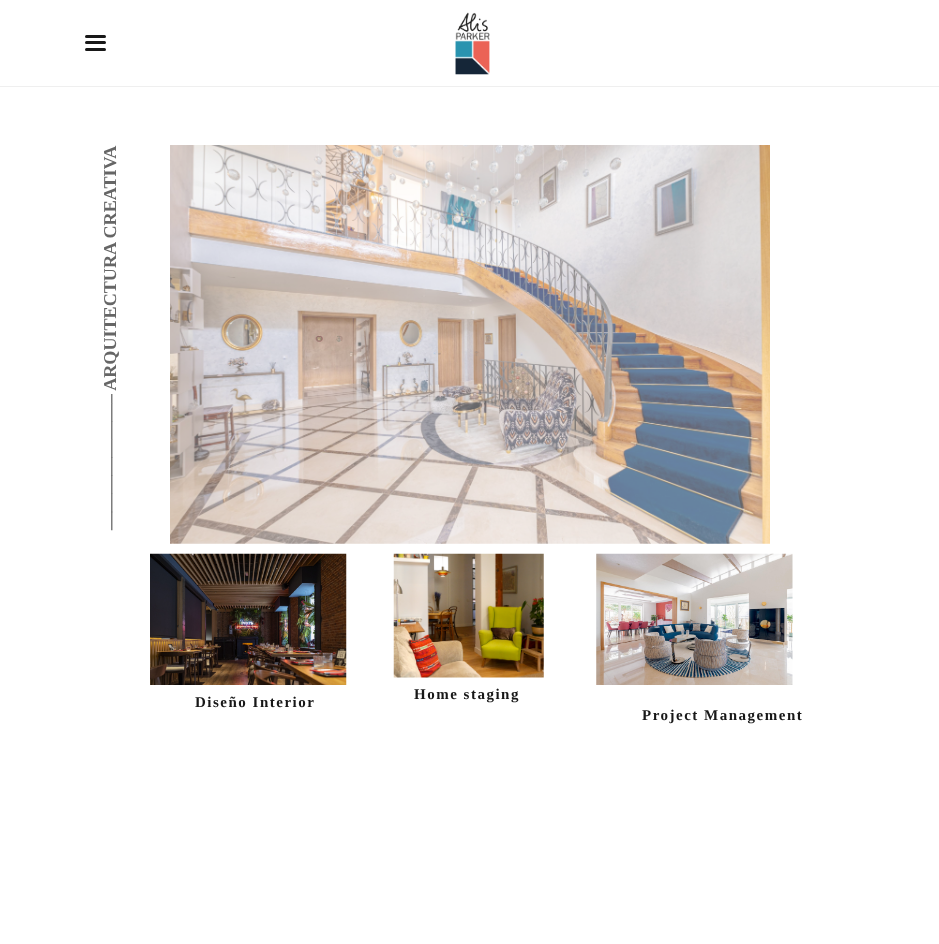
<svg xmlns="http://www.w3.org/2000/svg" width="939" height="944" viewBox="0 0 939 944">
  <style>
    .t1 { font: bold 18.1px Liberation Serif; fill: #666; }
    .t2 { font: bold 15px Liberation Serif; letter-spacing: 1.5px; fill: #181818; }
  </style>
  <rect width="100%" height="100%" fill="#fff"/>
  <rect x="0" y="86" width="939" height="1" fill="#efefef"/>
  <rect x="85" y="35" width="21" height="3" rx="1.5" fill="#181818"/>
  <rect x="85" y="41" width="21" height="3" rx="1.5" fill="#181818"/>
  <rect x="85" y="48" width="21" height="3" rx="1.5" fill="#181818"/>
  <image x="455" y="12" width="35" height="63" href="images/1.png"/>
  <text x="116" y="530" transform="rotate(-90 116 530)" class="t1">———————– ARQUITECTURA CREATIVA</text>
  <image x="170" y="145" width="600" height="399" href="images/2.png"/>
  <image x="150" y="553" width="197" height="132" href="images/3.png"/>
  <text x="195" y="707" class="t2">Diseño Interior</text>
  <image x="393" y="553" width="151" height="125" href="images/4.png"/>
  <text x="414" y="699" class="t2">Home staging</text>
  <image x="596" y="553" width="197" height="132" href="images/5.png"/>
  <text x="642" y="720" class="t2">Project Management</text>
</svg>
